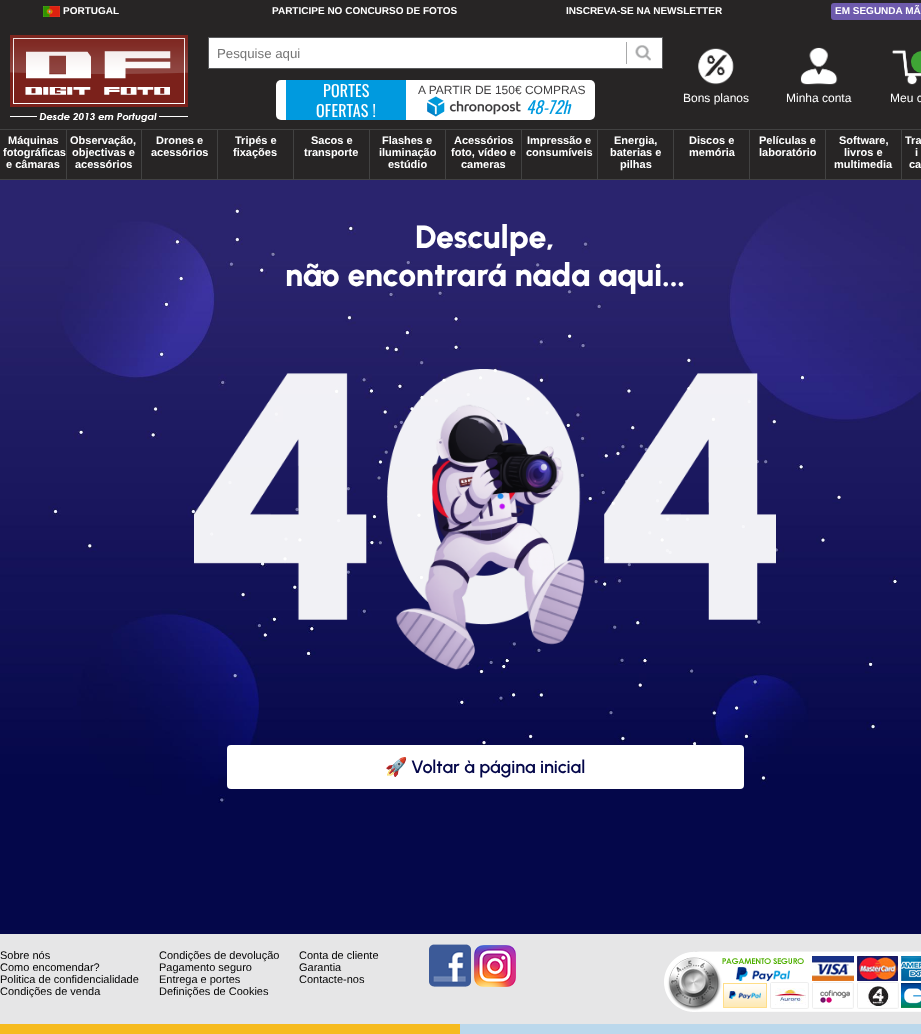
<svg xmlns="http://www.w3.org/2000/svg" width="921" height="1034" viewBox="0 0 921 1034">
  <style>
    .t1 { font: bold 10px Liberation Sans; fill: #fff; }
    .t2 { font: 13.25px Liberation Sans; fill: #757575; }
    .t3 { font: 16px Oswald; letter-spacing: 0.25px; fill: #fff; }
    .t4 { font: 12px Liberation Sans; fill: #414042; }
    .t5 { font: italic 17px Oswald; fill: #009adf; }
    .t6 { font: 12px Liberation Sans; fill: #fff; }
    .t7 { font: bold 11px Liberation Sans; fill: #fff; }
    .t8 { font: 800 32px Urbanist; fill: #fff; }
    .t9 { font: bold 18px Noto Color Emoji; fill: #04074a; }
    .t10 { font: 600 18px Urbanist; fill: #04074a; }
    .t11 { font: 11px Liberation Sans; fill: #000; }
  </style>
  <rect width="100%" height="100%" fill="#f6bb1f"/>
  <image x="440" y="1024" width="481" height="10" href="images/1.png"/>
  <rect x="0" y="0" width="921" height="179" fill="#272525"/>
  <image x="43" y="6" width="17" height="11" href="images/2.png"/>
  <text x="63" y="14" class="t1">PORTUGAL</text>
  <text x="272" y="14" class="t1">PARTICIPE NO CONCURSO DE FOTOS</text>
  <text x="566" y="14" class="t1">INSCREVA-SE NA NEWSLETTER</text>
  <rect x="831" y="3" width="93" height="17" rx="3" fill="#6e5bad"/>
  <text x="835" y="14" class="t1">EM SEGUNDA MÃ</text>
  <image x="10" y="35" width="178" height="87" href="images/3.png"/>
  <rect x="208.5" y="37.5" width="454" height="31" fill="#fff" stroke="#595a5c"/>
  <text x="217" y="58" class="t2">Pesquise aqui</text>
  <image x="635" y="45" width="16" height="16" href="images/4.png"/>
  <rect x="626" y="42" width="1" height="22" fill="#a8a9aa"/>
  <rect x="276" y="80" width="319" height="40" rx="5" fill="#fff"/>
  <rect x="286" y="80" width="120" height="40" fill="#009adf"/>
  <text x="323" y="97" class="t3">PORTES</text>
  <text x="316" y="117" class="t3">OFERTAS !</text>
  <text x="418" y="94" class="t4">A PARTIR DE 150€ COMPRAS</text>
  <image x="427" y="96" width="94" height="21" href="images/5.png"/>
  <text x="526" y="114" class="t5">48-72h</text>
  <image x="698" y="48" width="36" height="37" href="images/6.png"/>
  <text x="683" y="102" class="t6">Bons planos</text>
  <image x="800" y="47" width="38" height="38" href="images/7.png"/>
  <text x="786" y="102" class="t6">Minha conta</text>
  <image x="892" y="49" width="29" height="36" href="images/8.png"/>
  <rect x="911" y="51" width="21" height="22" rx="11" fill="#3fa535"/>
  <text x="890" y="102" class="t6">Meu c</text>
  <rect x="0" y="129" width="67" height="1" fill="#424242"/>
  <rect x="66" y="129" width="1" height="51" fill="#424242"/>
  <rect x="0" y="179" width="67" height="1" fill="#424242"/>
  <text x="8" y="144" class="t7">Máquinas</text>
  <text x="3" y="156" class="t7">fotográficas</text>
  <text x="6" y="168" class="t7">e câmaras</text>
  <rect x="66" y="129" width="855" height="1" fill="#424242"/>
  <rect x="141" y="129" width="1" height="51" fill="#424242"/>
  <rect x="66" y="179" width="76" height="1" fill="#424242"/>
  <text x="70" y="144" class="t7">Observação,</text>
  <text x="72" y="156" class="t7">objectivas e</text>
  <text x="75" y="168" class="t7">acessórios</text>
  <rect x="217" y="129" width="1" height="51" fill="#424242"/>
  <rect x="142" y="179" width="76" height="1" fill="#424242"/>
  <text x="156" y="144" class="t7">Drones e</text>
  <text x="151" y="156" class="t7">acessórios</text>
  <rect x="293" y="129" width="1" height="51" fill="#424242"/>
  <rect x="218" y="179" width="76" height="1" fill="#424242"/>
  <text x="235" y="144" class="t7">Tripés e</text>
  <text x="233" y="156" class="t7">fixações</text>
  <rect x="369" y="129" width="1" height="51" fill="#424242"/>
  <rect x="294" y="179" width="76" height="1" fill="#424242"/>
  <text x="311" y="144" class="t7">Sacos e</text>
  <text x="304" y="156" class="t7">transporte</text>
  <rect x="445" y="129" width="1" height="51" fill="#424242"/>
  <rect x="370" y="179" width="76" height="1" fill="#424242"/>
  <text x="382" y="144" class="t7">Flashes e</text>
  <text x="379" y="156" class="t7">iluminação</text>
  <text x="388" y="168" class="t7">estúdio</text>
  <rect x="521" y="129" width="1" height="51" fill="#424242"/>
  <rect x="446" y="179" width="76" height="1" fill="#424242"/>
  <text x="454" y="144" class="t7">Acessórios</text>
  <text x="451" y="156" class="t7">foto, vídeo e</text>
  <text x="461" y="168" class="t7">cameras</text>
  <rect x="597" y="129" width="1" height="51" fill="#424242"/>
  <rect x="522" y="179" width="76" height="1" fill="#424242"/>
  <text x="527" y="144" class="t7">Impressão e</text>
  <text x="526" y="156" class="t7">consumíveis</text>
  <rect x="673" y="129" width="1" height="51" fill="#424242"/>
  <rect x="598" y="179" width="76" height="1" fill="#424242"/>
  <text x="614" y="144" class="t7">Energia,</text>
  <text x="610" y="156" class="t7">baterias e</text>
  <text x="620" y="168" class="t7">pilhas</text>
  <rect x="749" y="129" width="1" height="51" fill="#424242"/>
  <rect x="674" y="179" width="76" height="1" fill="#424242"/>
  <text x="689" y="144" class="t7">Discos e</text>
  <text x="689" y="156" class="t7">memória</text>
  <rect x="825" y="129" width="1" height="51" fill="#424242"/>
  <rect x="750" y="179" width="76" height="1" fill="#424242"/>
  <text x="759" y="144" class="t7">Películas e</text>
  <text x="759" y="156" class="t7">laboratório</text>
  <rect x="901" y="129" width="1" height="51" fill="#424242"/>
  <rect x="826" y="179" width="95" height="1" fill="#424242"/>
  <text x="839" y="144" class="t7">Software,</text>
  <text x="844" y="156" class="t7">livros e</text>
  <text x="834" y="168" class="t7">multimedia</text>
  <text x="905" y="144" class="t7">Tra</text>
  <text x="915" y="156" class="t7">i</text>
  <text x="909" y="168" class="t7">ca</text>
  <rect x="0" y="803" width="921" height="131" fill="#04074a"/>
  <image x="0" y="180" width="921" height="623" href="images/9.png"/>
  <text x="415" y="248" class="t8">Desculpe,</text>
  <text x="285" y="286" class="t8">não encontrará nada aqui...</text>
  <image x="194" y="369" width="582" height="301" href="images/10.png"/>
  <rect x="227" y="745" width="517" height="44" rx="4" fill="#fff"/>
  <text x="385" y="773" class="t9">🚀</text>
  <text x="411" y="773" class="t10">Voltar à página inicial</text>
  <rect x="0" y="934" width="921" height="90" fill="#e6e6e7"/>
  <text x="0" y="959" class="t11">Sobre nós</text>
  <text x="0" y="971" class="t11">Como encomendar?</text>
  <text x="0" y="983" class="t11">Politica de confidencialidade</text>
  <text x="0" y="995" class="t11">Condições de venda</text>
  <text x="159" y="959" class="t11">Condições de devolução</text>
  <text x="159" y="971" class="t11">Pagamento seguro</text>
  <text x="159" y="983" class="t11">Entrega e portes</text>
  <text x="159" y="995" class="t11">Definições de Cookies</text>
  <text x="299" y="959" class="t11">Conta de cliente</text>
  <text x="299" y="971" class="t11">Garantia</text>
  <text x="299" y="983" class="t11">Contacte-nos</text>
  <image x="429" y="944" width="42" height="43" href="images/11.png"/>
  <image x="474" y="945" width="42" height="42" href="images/12.png"/>
  <image x="664" y="951" width="257" height="61" href="images/13.png"/>
</svg>
